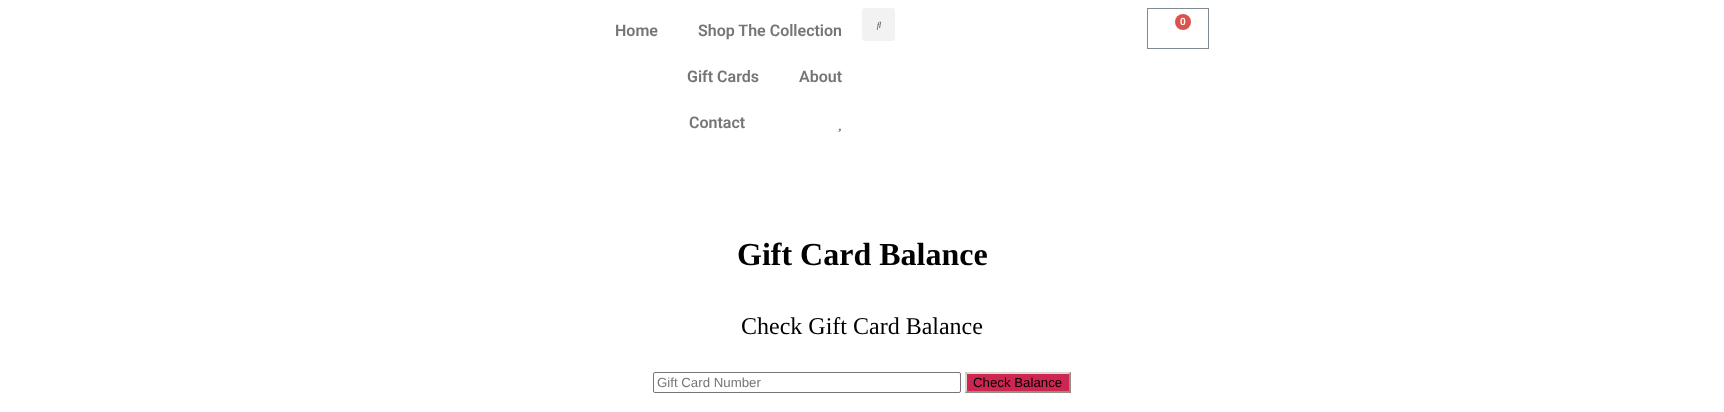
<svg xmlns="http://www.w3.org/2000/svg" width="1724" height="412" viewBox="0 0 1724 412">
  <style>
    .t1 { font: 600 10px Roboto; fill: #fff; }
    .t2 { font: 600 16px Roboto; fill: #757575; }
    .t3 { font: bold 32px Liberation Serif; fill: #000; }
    .t4 { font: 24px Liberation Serif; fill: #000; }
    .t5 { font: 13.25px Liberation Sans; fill: #757575; }
    .t6 { font: 13.25px Liberation Sans; fill: #000; }
  </style>
  <rect width="100%" height="100%" fill="#fff"/>
  <rect x="862" y="8" width="33" height="33" rx="3" fill="#f2f2f2"/>
  <image x="876" y="21" width="5" height="9" href="images/1.png"/>
  <rect x="1147.5" y="8.5" width="61" height="40" fill="none" stroke="#818a91"/>
  <circle cx="1183" cy="22" r="8" fill="#d9534f"/>
  <text x="1180" y="25" class="t1">0</text>
  <text x="615" y="36" class="t2">Home</text>
  <text x="698" y="36" class="t2">Shop The Collection</text>
  <text x="687" y="82" class="t2">Gift Cards</text>
  <text x="799" y="82" class="t2">About</text>
  <text x="689" y="128" class="t2">Contact</text>
  <image x="838" y="128" width="3" height="4" href="images/2.png"/>
  <text x="737" y="265" class="t3">Gift Card Balance</text>
  <text x="741" y="334" class="t4">Check Gift Card Balance</text>
  <rect x="653.5" y="372.5" width="307" height="20" rx="1.5" fill="none" stroke="#767676"/>
  <text x="657" y="387" class="t5">Gift Card Number</text>
  <rect x="965" y="372" width="106" height="21" fill="#cd2653"/>
  <path d="M965 372H1071L1069 374H967Z" fill="#dcd7ca"/>
  <path d="M1071 372V393L1069 391V374Z" fill="#938f87"/>
  <path d="M1071 393H965L967 391H1069Z" fill="#938f87"/>
  <path d="M965 393V372L967 374V391Z" fill="#dcd7ca"/>
  <text x="973" y="387" class="t6">Check Balance</text>
</svg>
